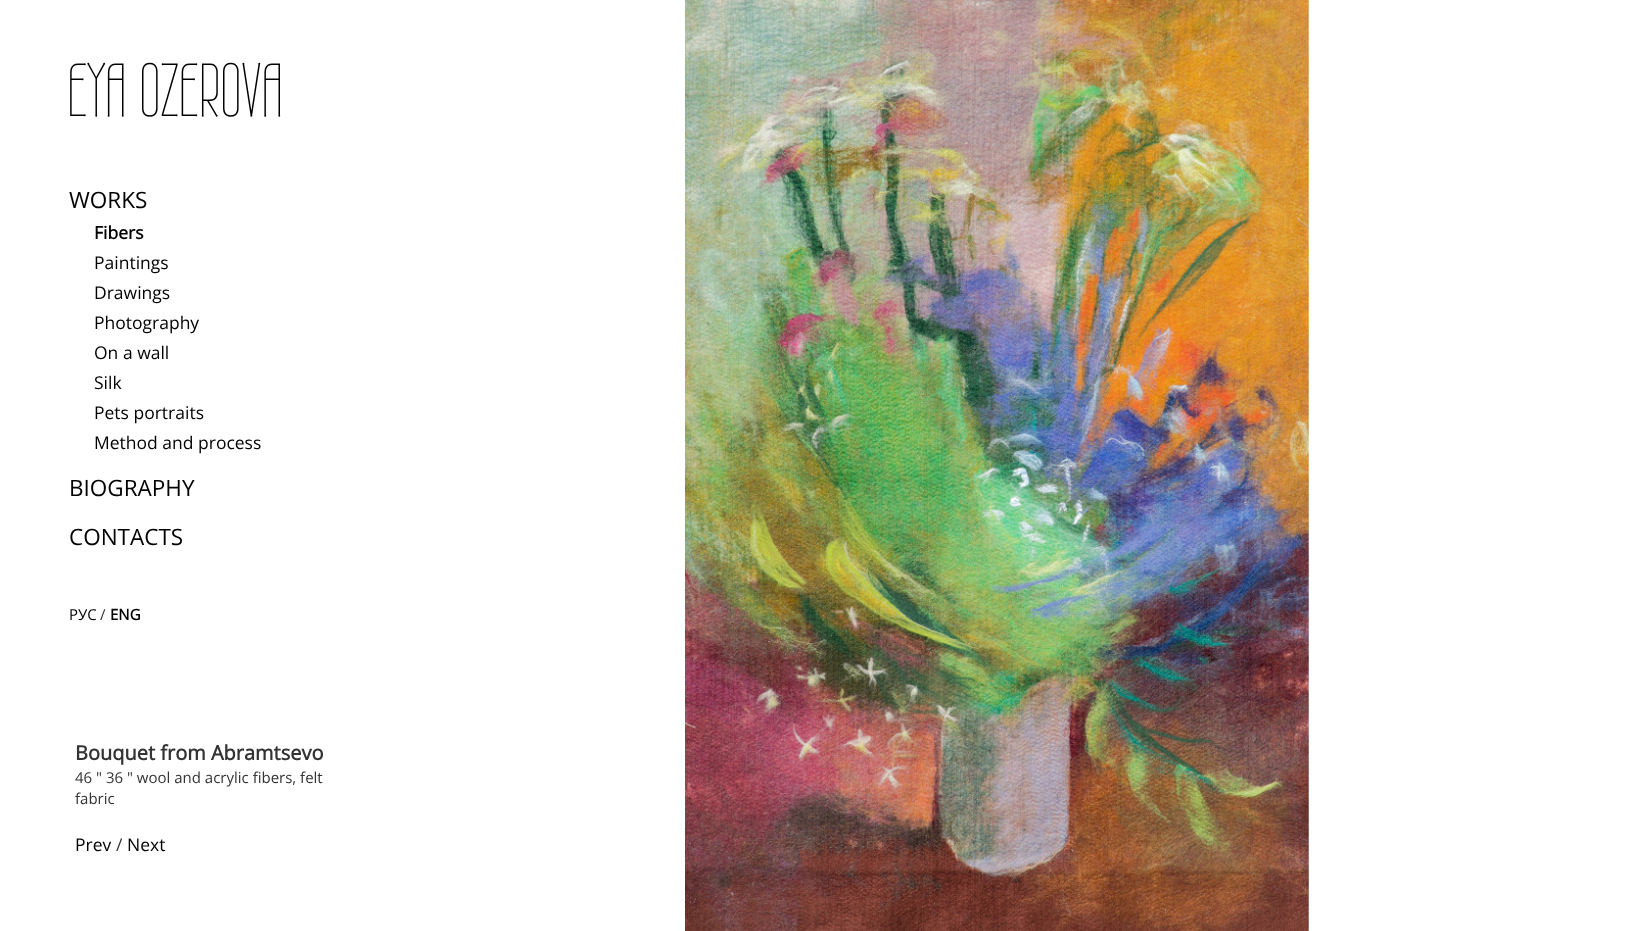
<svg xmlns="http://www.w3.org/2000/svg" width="1642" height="931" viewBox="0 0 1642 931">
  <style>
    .t1 { font: 75px Wire One; fill: #000; }
    .t2 { font: 22.5px Open Sans; fill: #000; }
    .t3 { font: bold 17.5px Open Sans; fill: #000; }
    .t4 { font: 17.5px Open Sans; fill: #000; }
    .t5 { font: 15px Open Sans; fill: #000; }
    .t6 { font: 15px Open Sans; fill: #333; }
    .t7 { font: bold 15px Open Sans; fill: #000; }
    .t8 { font: bold 20px Open Sans; fill: #333; }
    .t9 { font: 17.5px Open Sans; fill: #333; }
  </style>
  <rect width="100%" height="100%" fill="#fff"/>
  <text x="67" y="116" class="t1">EYA OZEROVA</text>
  <text x="69" y="208" class="t2">WORKS</text>
  <text x="94" y="239" class="t3">Fibers</text>
  <text x="94" y="269" class="t4">Paintings</text>
  <text x="94" y="299" class="t4">Drawings</text>
  <text x="94" y="329" class="t4">Photography</text>
  <text x="94" y="359" class="t4">On a wall</text>
  <text x="94" y="389" class="t4">Silk</text>
  <text x="94" y="419" class="t4">Pets portraits</text>
  <text x="94" y="449" class="t4">Method and process</text>
  <text x="69" y="496" class="t2">BIOGRAPHY</text>
  <text x="69" y="545" class="t2">CONTACTS</text>
  <text x="69" y="620" class="t5">РУС</text>
  <text x="100" y="620" class="t6">/</text>
  <text x="110" y="620" class="t7">ENG</text>
  <text x="75" y="760" class="t8">Bouquet from Abramtsevo</text>
  <text x="75" y="783" class="t6">46 " 36 " wool and acrylic fibers, felt</text>
  <text x="75" y="804" class="t6">fabric</text>
  <text x="75" y="851" class="t4">Prev</text>
  <text x="116" y="851" class="t9">/</text>
  <text x="127" y="851" class="t4">Next</text>
  <image x="685" y="0" width="624" height="931" href="images/1.png"/>
</svg>
